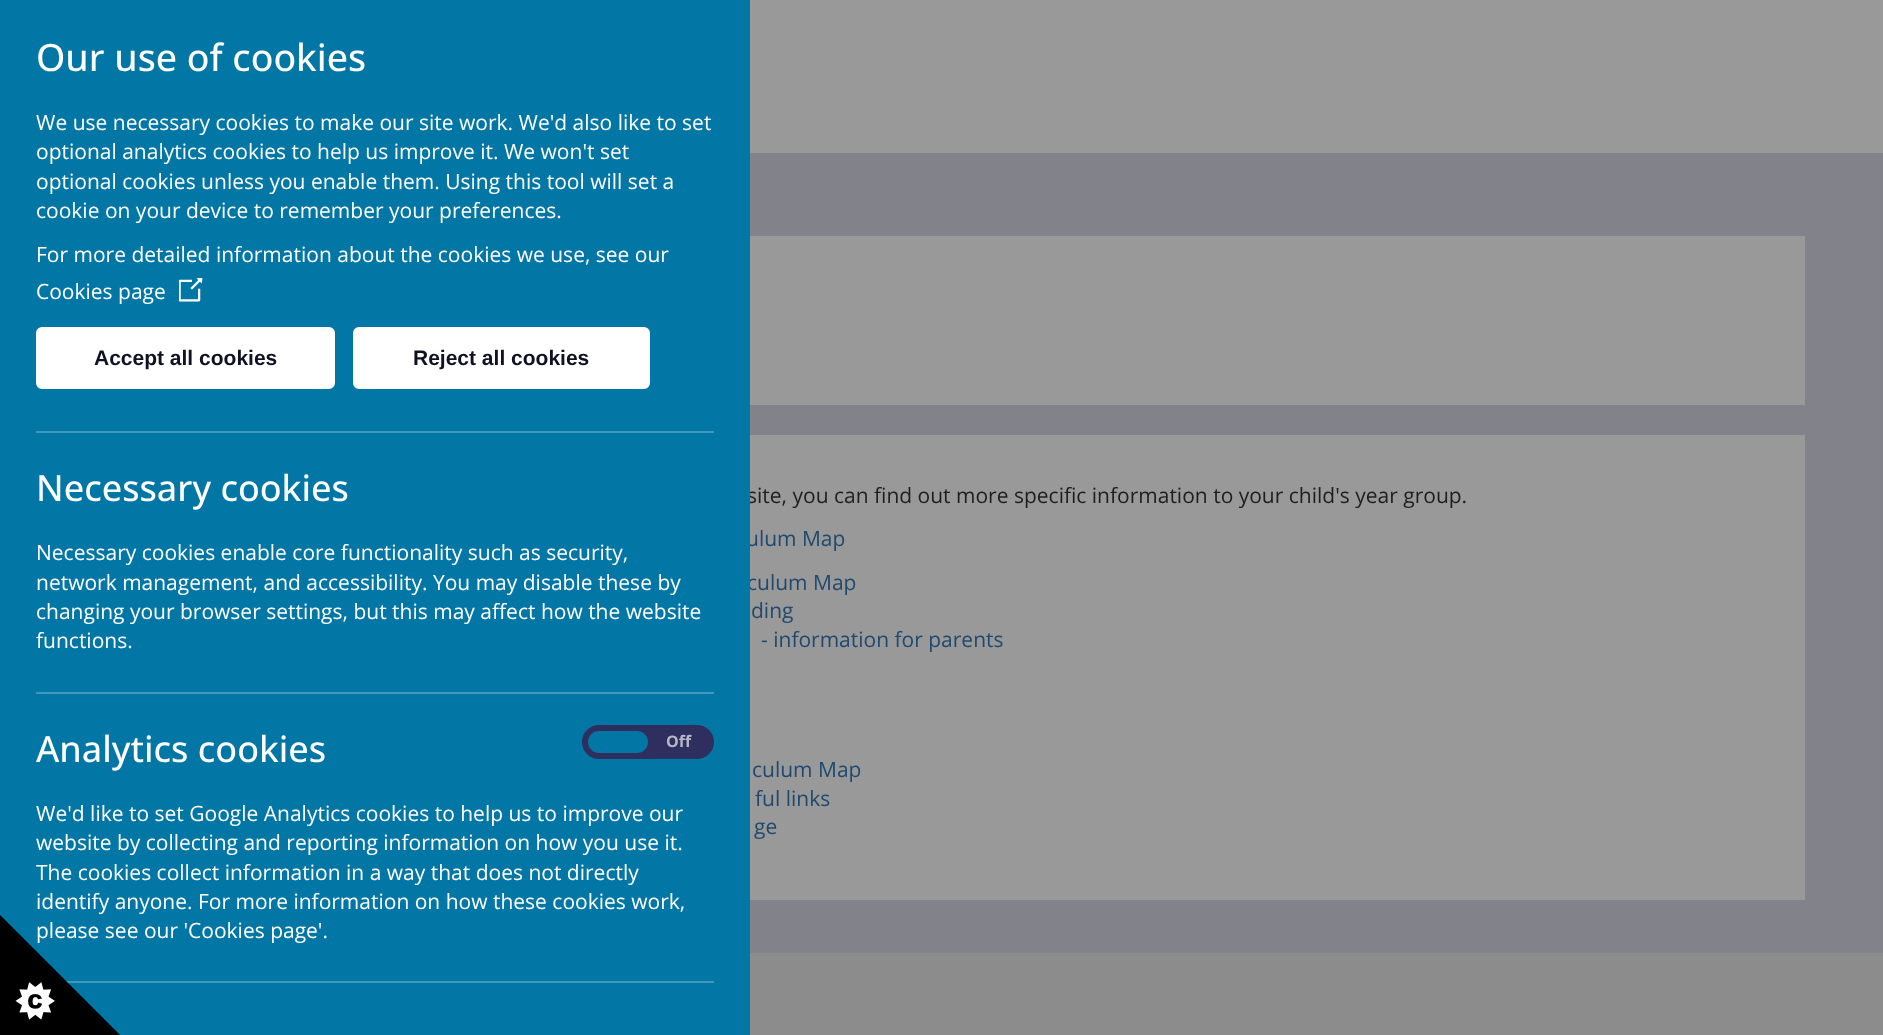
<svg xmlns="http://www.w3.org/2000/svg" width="1883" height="1035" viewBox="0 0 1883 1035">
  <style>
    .t1 { font: 21px Open Sans; fill: #1f1f1f; }
    .t2 { font: 21px Open Sans; fill: #1f496e; }
    .t3 { font: 500 37.5px Open Sans; fill: #fff; }
    .t4 { font: 21px Open Sans; fill: #fff; }
    .t5 { font: bold 21px Liberation Sans; fill: #111125; }
    .t6 { font: 500 36px Open Sans; fill: #fff; }
    .t7 { font: bold 16px Open Sans; fill: #b6b6c7; }
  </style>
  <rect width="100%" height="100%" fill="#999"/>
  <rect x="750" y="953" width="1133" height="82" fill="#8c8c8c"/>
  <rect x="750" y="153" width="1133" height="800" fill="#82838a"/>
  <rect x="750" y="435" width="1055" height="465" fill="#999"/>
  <text x="747" y="503" class="t1">site, you can find out more specific information to your child's year group.</text>
  <text x="746" y="546" class="t2">ulum Map</text>
  <text x="747" y="590" class="t2">culum Map</text>
  <rect x="0" y="0" width="750" height="1035" fill="#0276a5"/>
  <text x="36" y="71" class="t3">Our use of cookies</text>
  <text x="36" y="130" class="t4">We use necessary cookies to make our site work. We'd also like to set</text>
  <text x="36" y="159" class="t4">optional analytics cookies to help us improve it. We won't set</text>
  <text x="36" y="189" class="t4">optional cookies unless you enable them. Using this tool will set a</text>
  <text x="36" y="218" class="t4">cookie on your device to remember your preferences.</text>
  <text x="36" y="262" class="t4">For more detailed information about the cookies we use, see our</text>
  <text x="36" y="299" class="t4">Cookies page</text>
  <image x="179" y="278" width="24" height="24" href="images/1.png"/>
  <rect x="37.5" y="328.5" width="296" height="59" rx="4.5" fill="#fff" stroke="#fff" stroke-width="3"/>
  <text x="94" y="365" class="t5">Accept all cookies</text>
  <rect x="354.5" y="328.5" width="294" height="59" rx="4.5" fill="#fff" stroke="#fff" stroke-width="3"/>
  <text x="413" y="365" class="t5">Reject all cookies</text>
  <rect x="36" y="431" width="678" height="2" fill="#4198bc"/>
  <text x="36" y="501" class="t6">Necessary cookies</text>
  <text x="36" y="560" class="t4">Necessary cookies enable core functionality such as security,</text>
  <text x="36" y="590" class="t4">network management, and accessibility. You may disable these by</text>
  <text x="36" y="619" class="t4">changing your browser settings, but this may affect how the website</text>
  <text x="36" y="648" class="t4">functions.</text>
  <rect x="36" y="692" width="678" height="2" fill="#4198bc"/>
  <text x="36" y="762" class="t6">Analytics cookies</text>
  <rect x="585" y="728" width="126" height="28" rx="14" fill="#2f2f5f" stroke="#2f2f5f" stroke-width="6"/>
  <rect x="588" y="731" width="60" height="22" rx="11" fill="#0276a5"/>
  <text x="666" y="747" class="t7">Off</text>
  <text x="36" y="821" class="t4">We'd like to set Google Analytics cookies to help us to improve our</text>
  <text x="36" y="850" class="t4">website by collecting and reporting information on how you use it.</text>
  <text x="36" y="880" class="t4">The cookies collect information in a way that does not directly</text>
  <text x="36" y="909" class="t4">identify anyone. For more information on how these cookies work,</text>
  <text x="36" y="938" class="t4">please see our 'Cookies page'.</text>
  <rect x="66" y="981" width="648" height="2" fill="#4198bc"/>
  <image x="0" y="915" width="120" height="120" href="images/2.png"/>
  <rect x="750" y="236" width="1055" height="169" fill="#999"/>
  <text x="751" y="618" class="t2">ding</text>
  <text x="761" y="647" class="t2">- information for parents</text>
  <text x="752" y="777" class="t2">culum Map</text>
  <text x="755" y="806" class="t2">ful links</text>
  <text x="754" y="834" class="t2">ge</text>
</svg>
